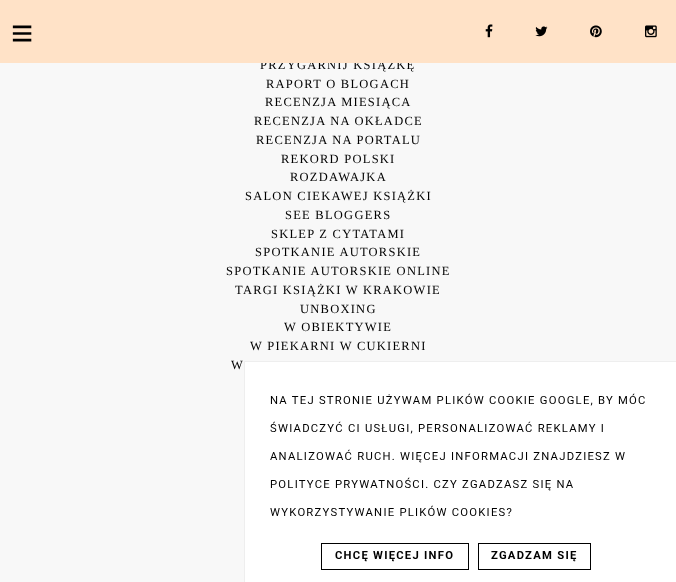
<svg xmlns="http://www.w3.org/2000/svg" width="676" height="582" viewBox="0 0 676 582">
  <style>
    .t1 { font: 12.5px Liberation Serif; letter-spacing: 1.25px; fill: #000; }
    .t2 { font: bold 38px Liberation Sans; fill: #000; }
    .t3 { font: 11.25px Roboto; letter-spacing: 1.25px; fill: #000; }
    .t4 { font: bold 11.25px Roboto; letter-spacing: 1.25px; fill: #000; }
  </style>
  <rect width="100%" height="100%" fill="#f8f8f8"/>
  <text x="260" y="69" class="t1">PRZYGARNIJ KSIĄŻKĘ</text>
  <rect x="0" y="0" width="676" height="63" fill="#ffe2c7"/>
  <text x="11" y="46" class="t2">≡</text>
  <image x="485" y="24" width="8" height="14" href="images/1.png"/>
  <image x="535" y="26" width="13" height="11" href="images/2.png"/>
  <image x="590" y="25" width="12" height="13" href="images/3.png"/>
  <image x="645" y="25" width="12" height="13" href="images/4.png"/>
  <text x="266" y="88" class="t1">RAPORT O BLOGACH</text>
  <text x="265" y="106" class="t1">RECENZJA MIESIĄCA</text>
  <text x="254" y="125" class="t1">RECENZJA NA OKŁADCE</text>
  <text x="256" y="144" class="t1">RECENZJA NA PORTALU</text>
  <text x="281" y="163" class="t1">REKORD POLSKI</text>
  <text x="290" y="181" class="t1">ROZDAWAJKA</text>
  <text x="245" y="200" class="t1">SALON CIEKAWEJ KSIĄŻKI</text>
  <text x="285" y="219" class="t1">SEE BLOGGERS</text>
  <text x="271" y="238" class="t1">SKLEP Z CYTATAMI</text>
  <text x="255" y="256" class="t1">SPOTKANIE AUTORSKIE</text>
  <text x="226" y="275" class="t1">SPOTKANIE AUTORSKIE ONLINE</text>
  <text x="235" y="294" class="t1">TARGI KSIĄŻKI W KRAKOWIE</text>
  <text x="300" y="313" class="t1">UNBOXING</text>
  <text x="284" y="331" class="t1">W OBIEKTYWIE</text>
  <text x="250" y="350" class="t1">W PIEKARNI W CUKIERNI</text>
  <text x="231" y="369" class="t1">W</text>
  <rect x="245" y="362" width="431" height="220" fill="#fff"/>
  <rect x="244" y="361" width="432" height="1" fill="#eee"/>
  <rect x="244" y="361" width="1" height="221" fill="#eee"/>
  <text x="270" y="404" class="t3">NA TEJ STRONIE UŻYWAM PLIKÓW COOKIE GOOGLE, BY MÓC</text>
  <text x="270" y="432" class="t3">ŚWIADCZYĆ CI USŁUGI, PERSONALIZOWAĆ REKLAMY I</text>
  <text x="270" y="460" class="t3">ANALIZOWAĆ RUCH. WIĘCEJ INFORMACJI ZNAJDZIESZ W</text>
  <text x="270" y="488" class="t3">POLITYCE PRYWATNOŚCI. CZY ZGADZASZ SIĘ NA</text>
  <text x="270" y="516" class="t3">WYKORZYSTYWANIE PLIKÓW COOKIES?</text>
  <rect x="321.5" y="543.5" width="147" height="26" fill="none" stroke="#000"/>
  <text x="335" y="559" class="t4">CHCĘ WIĘCEJ INFO</text>
  <rect x="478.5" y="543.5" width="112" height="26" fill="none" stroke="#000"/>
  <text x="491" y="559" class="t4">ZGADZAM SIĘ</text>
</svg>
